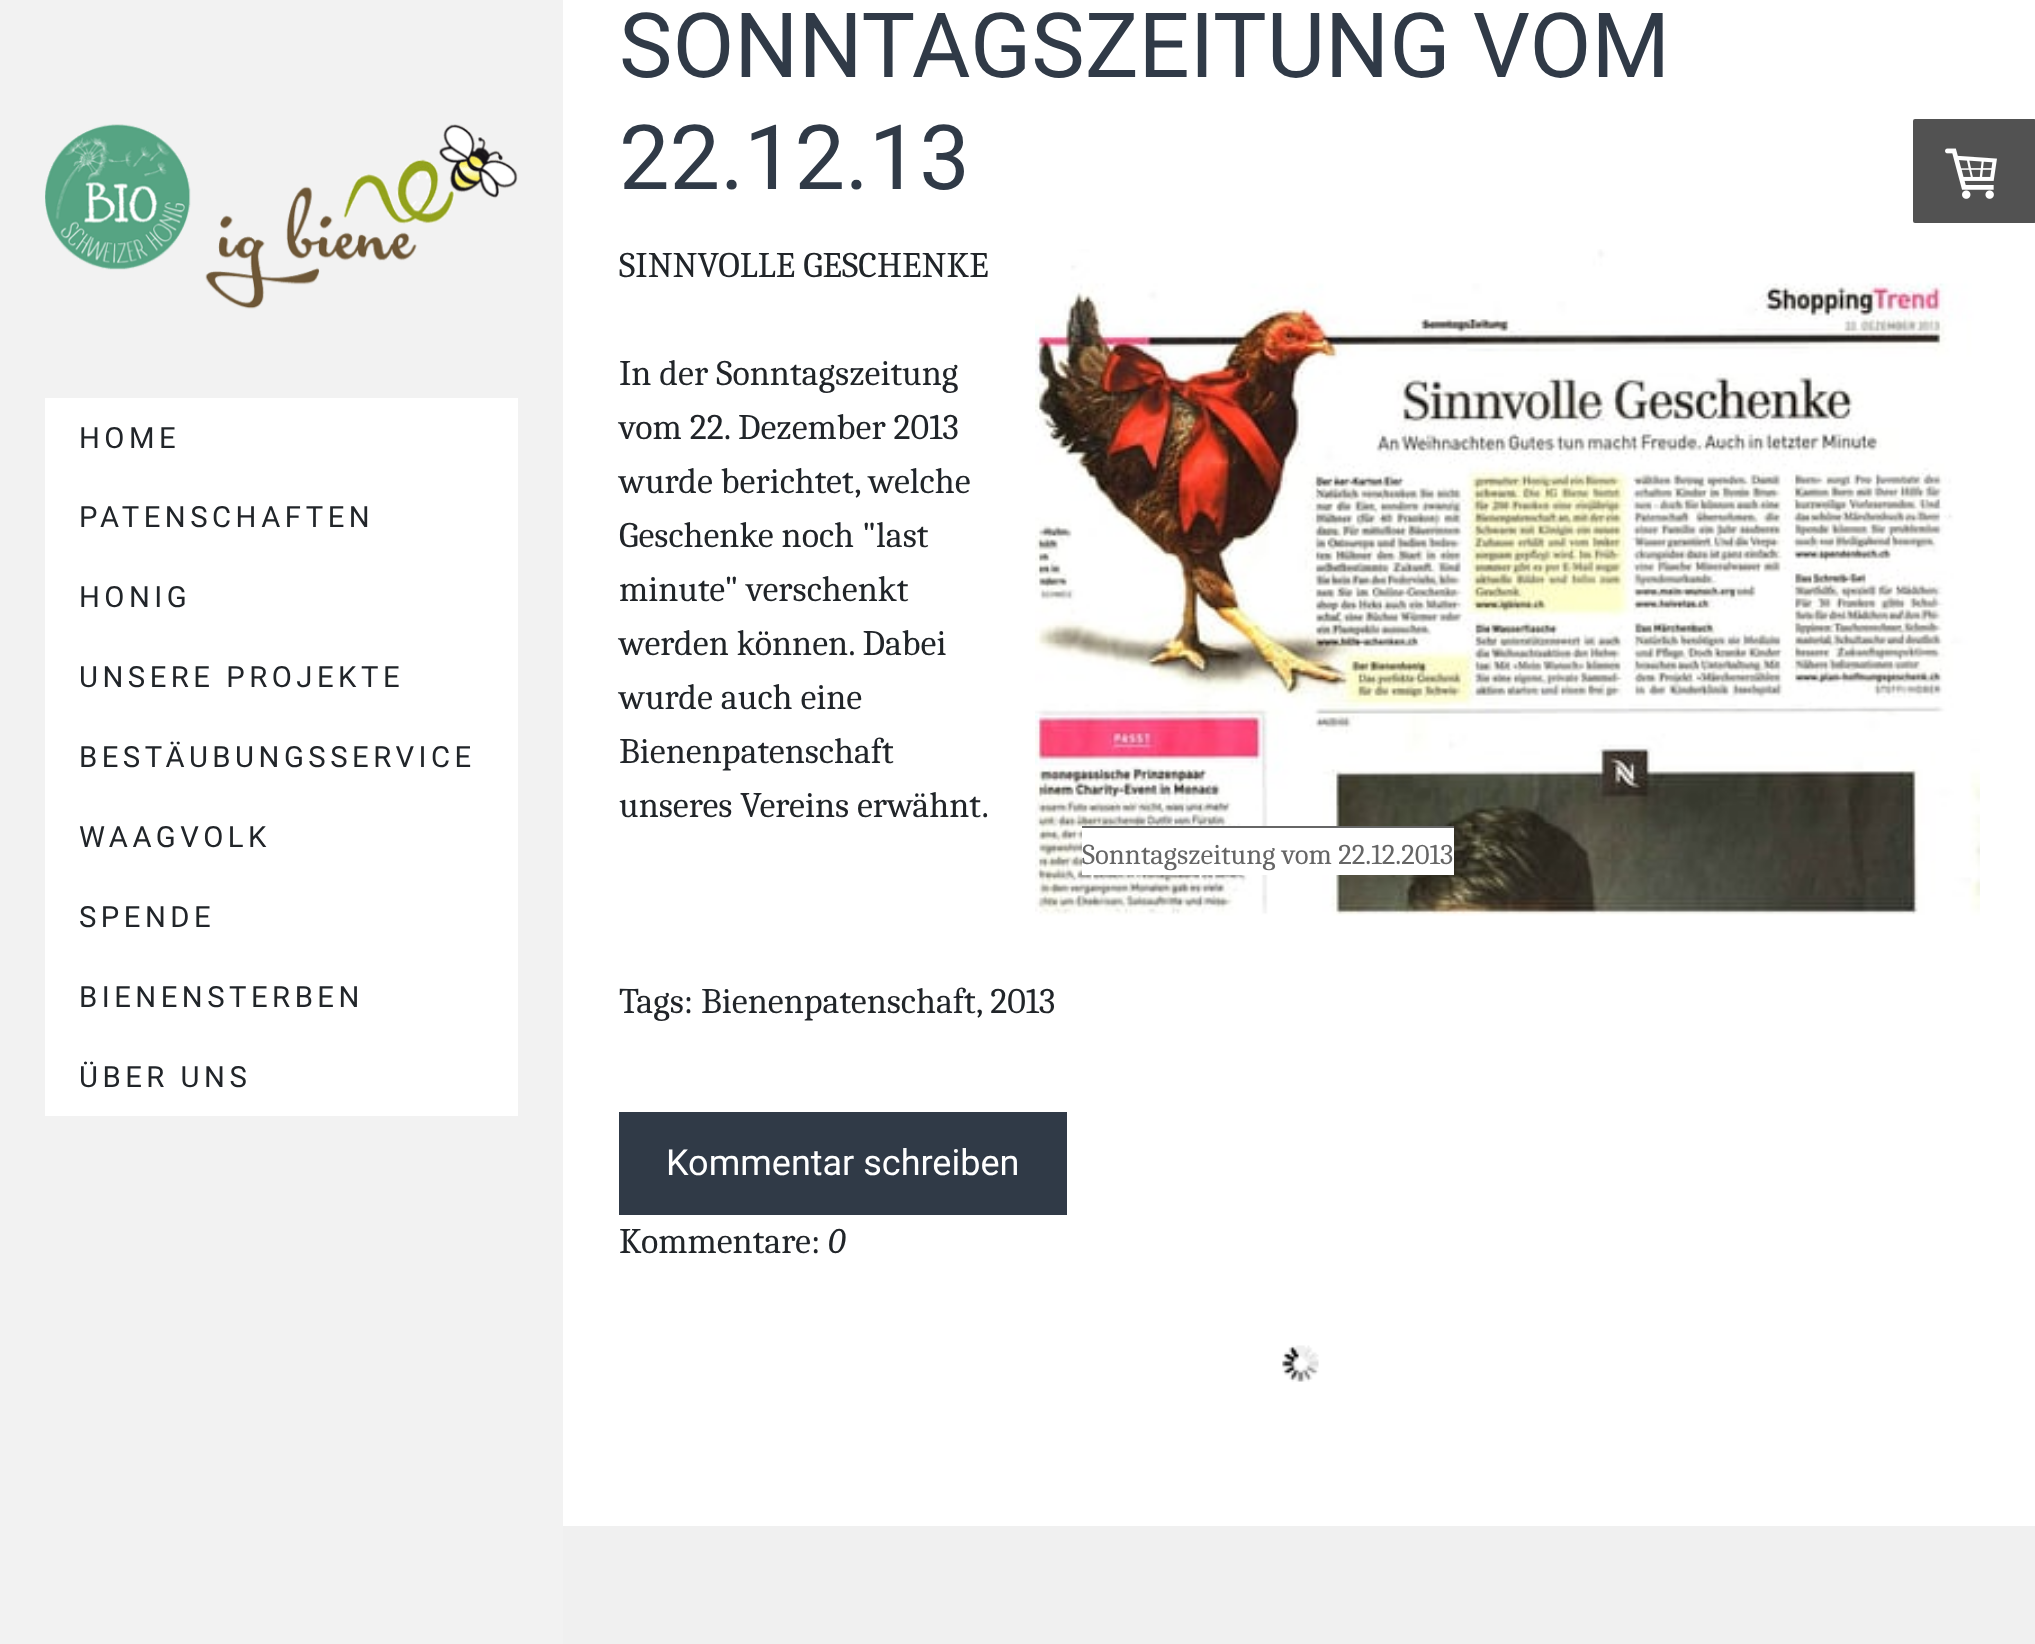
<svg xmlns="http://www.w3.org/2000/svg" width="2035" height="1644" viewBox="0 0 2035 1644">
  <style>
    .t1 { font: 90px Roboto; fill: #303a47; }
    .t2 { font: 36px Caladea; fill: #212529; }
    .t3 { font: 28.75px Caladea; fill: #666; }
    .t4 { font: 36px Roboto; fill: #fff; }
    .t5 { font: italic 36px Caladea; fill: #212529; }
    .t6 { font: 29.25px Roboto; letter-spacing: 4.5px; fill: #212529; }
  </style>
  <rect width="100%" height="100%" fill="#fff"/>
  <text x="619" y="77" class="t1">SONNTAGSZEITUNG VOM</text>
  <text x="619" y="189" class="t1">22.12.13</text>
  <text x="619" y="277" class="t2">SINNVOLLE GESCHENKE</text>
  <text x="619" y="385" class="t2">In der Sonntagszeitung</text>
  <text x="619" y="439" class="t2">vom 22. Dezember 2013</text>
  <text x="619" y="493" class="t2">wurde berichtet, welche</text>
  <text x="619" y="547" class="t2">Geschenke noch "last</text>
  <text x="619" y="601" class="t2">minute" verschenkt</text>
  <text x="619" y="655" class="t2">werden können. Dabei</text>
  <text x="619" y="709" class="t2">wurde auch eine</text>
  <text x="619" y="763" class="t2">Bienenpatenschaft</text>
  <text x="619" y="817" class="t2">unseres Vereins erwähnt.</text>
  <image x="1035" y="249" width="945" height="667" href="images/1.png"/>
  <rect x="1082" y="828" width="372" height="47" fill="#fff"/>
  <rect x="1082" y="826" width="372" height="2" fill="#666"/>
  <text x="1082" y="864" class="t3">Sonntagszeitung vom 22.12.2013</text>
  <text x="619" y="1013" class="t2">Tags:</text>
  <text x="701" y="1013" class="t2">Bienenpatenschaft</text>
  <text x="976" y="1013" class="t2">, 2013</text>
  <rect x="619" y="1112" width="448" height="103" fill="#303a47"/>
  <text x="666" y="1175" class="t4">Kommentar schreiben</text>
  <text x="619" y="1253" class="t2">Kommentare:</text>
  <text x="828" y="1253" class="t5">0</text>
  <image x="1282" y="1345" width="37" height="37" href="images/2.png"/>
  <rect x="563" y="1526" width="1472" height="118" fill="#f0f0f0"/>
  <rect x="1913" y="119" width="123" height="104" rx="2" fill="#525252"/>
  <image x="1945" y="148" width="52" height="51" href="images/3.png"/>
  <rect x="0" y="0" width="563" height="1644" fill="#f2f2f2"/>
  <image x="45" y="124" width="473" height="185" href="images/4.png"/>
  <rect x="45" y="398" width="473" height="718" fill="#fff"/>
  <text x="79" y="448" class="t6">HOME</text>
  <text x="79" y="527" class="t6">PATENSCHAFTEN</text>
  <text x="79" y="607" class="t6">HONIG</text>
  <text x="79" y="687" class="t6">UNSERE PROJEKTE</text>
  <text x="79" y="767" class="t6">BESTÄUBUNGSSERVICE</text>
  <text x="79" y="847" class="t6">WAAGVOLK</text>
  <text x="79" y="927" class="t6">SPENDE</text>
  <text x="79" y="1007" class="t6">BIENENSTERBEN</text>
  <text x="79" y="1087" class="t6">ÜBER UNS</text>
</svg>
